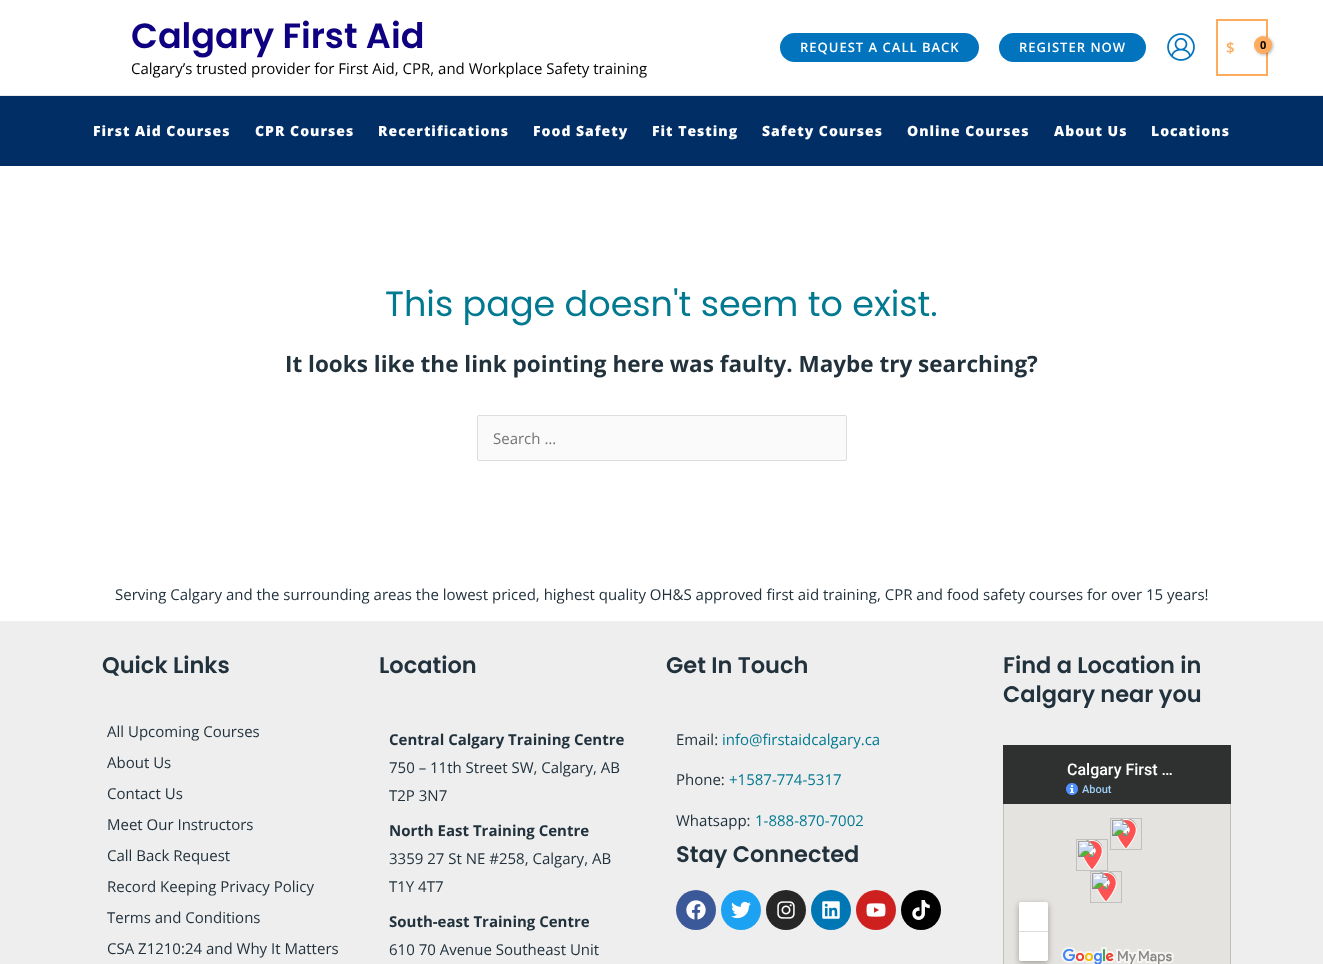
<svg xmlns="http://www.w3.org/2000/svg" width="1323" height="964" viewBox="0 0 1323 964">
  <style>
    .t1 { font: 600 35px Poppins; fill: #0e0080; }
    .t2 { font: 15px Open Sans; fill: #000; }
    .t3 { font: 600 13px Open Sans; letter-spacing: 1px; fill: #fff; }
    .t4 { font: 600 15px Open Sans; fill: #ffab5e; }
    .t5 { font: bold 11px Open Sans; fill: #000; }
    .t6 { font: 800 14px Open Sans; letter-spacing: 1px; fill: #fff; }
    .t7 { font: 35px Poppins; fill: #007991; }
    .t8 { font: bold 22.5px Open Sans; fill: #22323d; }
    .t9 { font: 15px Open Sans; fill: #757575; }
    .t10 { font: 15px Open Sans; fill: #22323d; }
    .t11 { font: 600 22.5px Poppins; fill: #22323d; }
    .t12 { font: bold 15px Open Sans; fill: #22323d; }
    .t13 { font: 15px Open Sans; fill: #007991; }
  </style>
  <rect width="100%" height="100%" fill="#fff"/>
  <rect x="0" y="95" width="1323" height="1" fill="#eaeaea"/>
  <text x="131" y="48" class="t1">Calgary First Aid</text>
  <text x="131" y="74" class="t2">Calgary’s trusted provider for First Aid, CPR, and Workplace Safety training</text>
  <rect x="780" y="33" width="199" height="29" rx="14.5" fill="#0274be"/>
  <text x="800" y="52" class="t3">REQUEST A CALL BACK</text>
  <rect x="999" y="33" width="147" height="29" rx="14.5" fill="#0274be"/>
  <text x="1019" y="52" class="t3">REGISTER NOW</text>
  <image x="1167" y="33" width="28" height="28" href="images/1.png"/>
  <rect x="1217" y="20" width="50" height="55" fill="none" stroke="#ffab5e" stroke-width="2"/>
  <text x="1226" y="53" class="t4">$</text>
  <rect x="1255" y="37" width="18" height="18" rx="9" fill="#0000004d" filter="blur(1.5px)"/>
  <circle cx="1263" cy="45" r="9" fill="#ffab5e"/>
  <text x="1260" y="49" class="t5">0</text>
  <rect x="0" y="96" width="1323" height="70" fill="#012e65"/>
  <text x="93" y="136" class="t6">First Aid Courses</text>
  <text x="255" y="136" class="t6">CPR Courses</text>
  <text x="378" y="136" class="t6">Recertifications</text>
  <text x="533" y="136" class="t6">Food Safety</text>
  <text x="652" y="136" class="t6">Fit Testing</text>
  <text x="762" y="136" class="t6">Safety Courses</text>
  <text x="907" y="136" class="t6">Online Courses</text>
  <text x="1054" y="136" class="t6">About Us</text>
  <text x="1151" y="136" class="t6">Locations</text>
  <text x="385" y="316" class="t7">This page doesn't seem to exist.</text>
  <text x="285" y="372" class="t8">It looks like the link pointing here was faulty. Maybe try searching?</text>
  <rect x="477.5" y="415.5" width="369" height="45" rx="1.5" fill="#fafafa" stroke="#ddd"/>
  <text x="493" y="444" class="t9">Search …</text>
  <text x="115" y="600" class="t10">Serving Calgary and the surrounding areas the lowest priced, highest quality OH&amp;S approved first aid training, CPR and food safety courses for over 15 years!</text>
  <rect x="0" y="621" width="1323" height="343" fill="#eee"/>
  <text x="102" y="673" class="t11">Quick Links</text>
  <text x="107" y="737" class="t10">All Upcoming Courses</text>
  <text x="107" y="768" class="t10">About Us</text>
  <text x="107" y="799" class="t10">Contact Us</text>
  <text x="107" y="830" class="t10">Meet Our Instructors</text>
  <text x="107" y="861" class="t10">Call Back Request</text>
  <text x="107" y="892" class="t10">Record Keeping Privacy Policy</text>
  <text x="107" y="923" class="t10">Terms and Conditions</text>
  <text x="107" y="954" class="t10">CSA Z1210:24 and Why It Matters</text>
  <text x="379" y="673" class="t11">Location</text>
  <text x="389" y="745" class="t12">Central Calgary Training Centre</text>
  <text x="389" y="773" class="t10">750 – 11th Street SW, Calgary, AB</text>
  <text x="389" y="801" class="t10">T2P 3N7</text>
  <text x="389" y="836" class="t12">North East Training Centre</text>
  <text x="389" y="864" class="t10">3359 27 St NE #258, Calgary, AB</text>
  <text x="389" y="892" class="t10">T1Y 4T7</text>
  <text x="389" y="927" class="t12">South-east Training Centre</text>
  <text x="389" y="955" class="t10">610 70 Avenue Southeast Unit</text>
  <text x="666" y="673" class="t11">Get In Touch</text>
  <text x="676" y="745" class="t10">Email:</text>
  <text x="722" y="745" class="t13">info@firstaidcalgary.ca</text>
  <text x="676" y="785" class="t10">Phone:</text>
  <text x="729" y="785" class="t13">+1587-774-5317</text>
  <text x="676" y="826" class="t10">Whatsapp:</text>
  <text x="755" y="826" class="t13">1-888-870-7002</text>
  <text x="676" y="862" class="t11">Stay Connected</text>
  <circle cx="696" cy="910" r="20" fill="#3b5998"/>
  <image x="686" y="900" width="20" height="20" href="images/2.png"/>
  <circle cx="741" cy="910" r="20" fill="#1da1f2"/>
  <image x="731" y="901" width="20" height="18" href="images/3.png"/>
  <circle cx="786" cy="910" r="20" fill="#262626"/>
  <image x="777" y="901" width="18" height="18" href="images/4.png"/>
  <circle cx="831" cy="910" r="20" fill="#0077b5"/>
  <image x="822" y="901" width="18" height="18" href="images/5.png"/>
  <circle cx="876" cy="910" r="20" fill="#cd201f"/>
  <image x="866" y="903" width="20" height="14" href="images/6.png"/>
  <circle cx="921" cy="910" r="20" fill="#020101"/>
  <image x="912" y="900" width="18" height="20" href="images/7.png"/>
  <text x="1003" y="673" class="t11">Find a Location in</text>
  <text x="1003" y="702" class="t11">Calgary near you</text>
  <image x="1003" y="745" width="228" height="219" href="images/8.png"/>
</svg>
